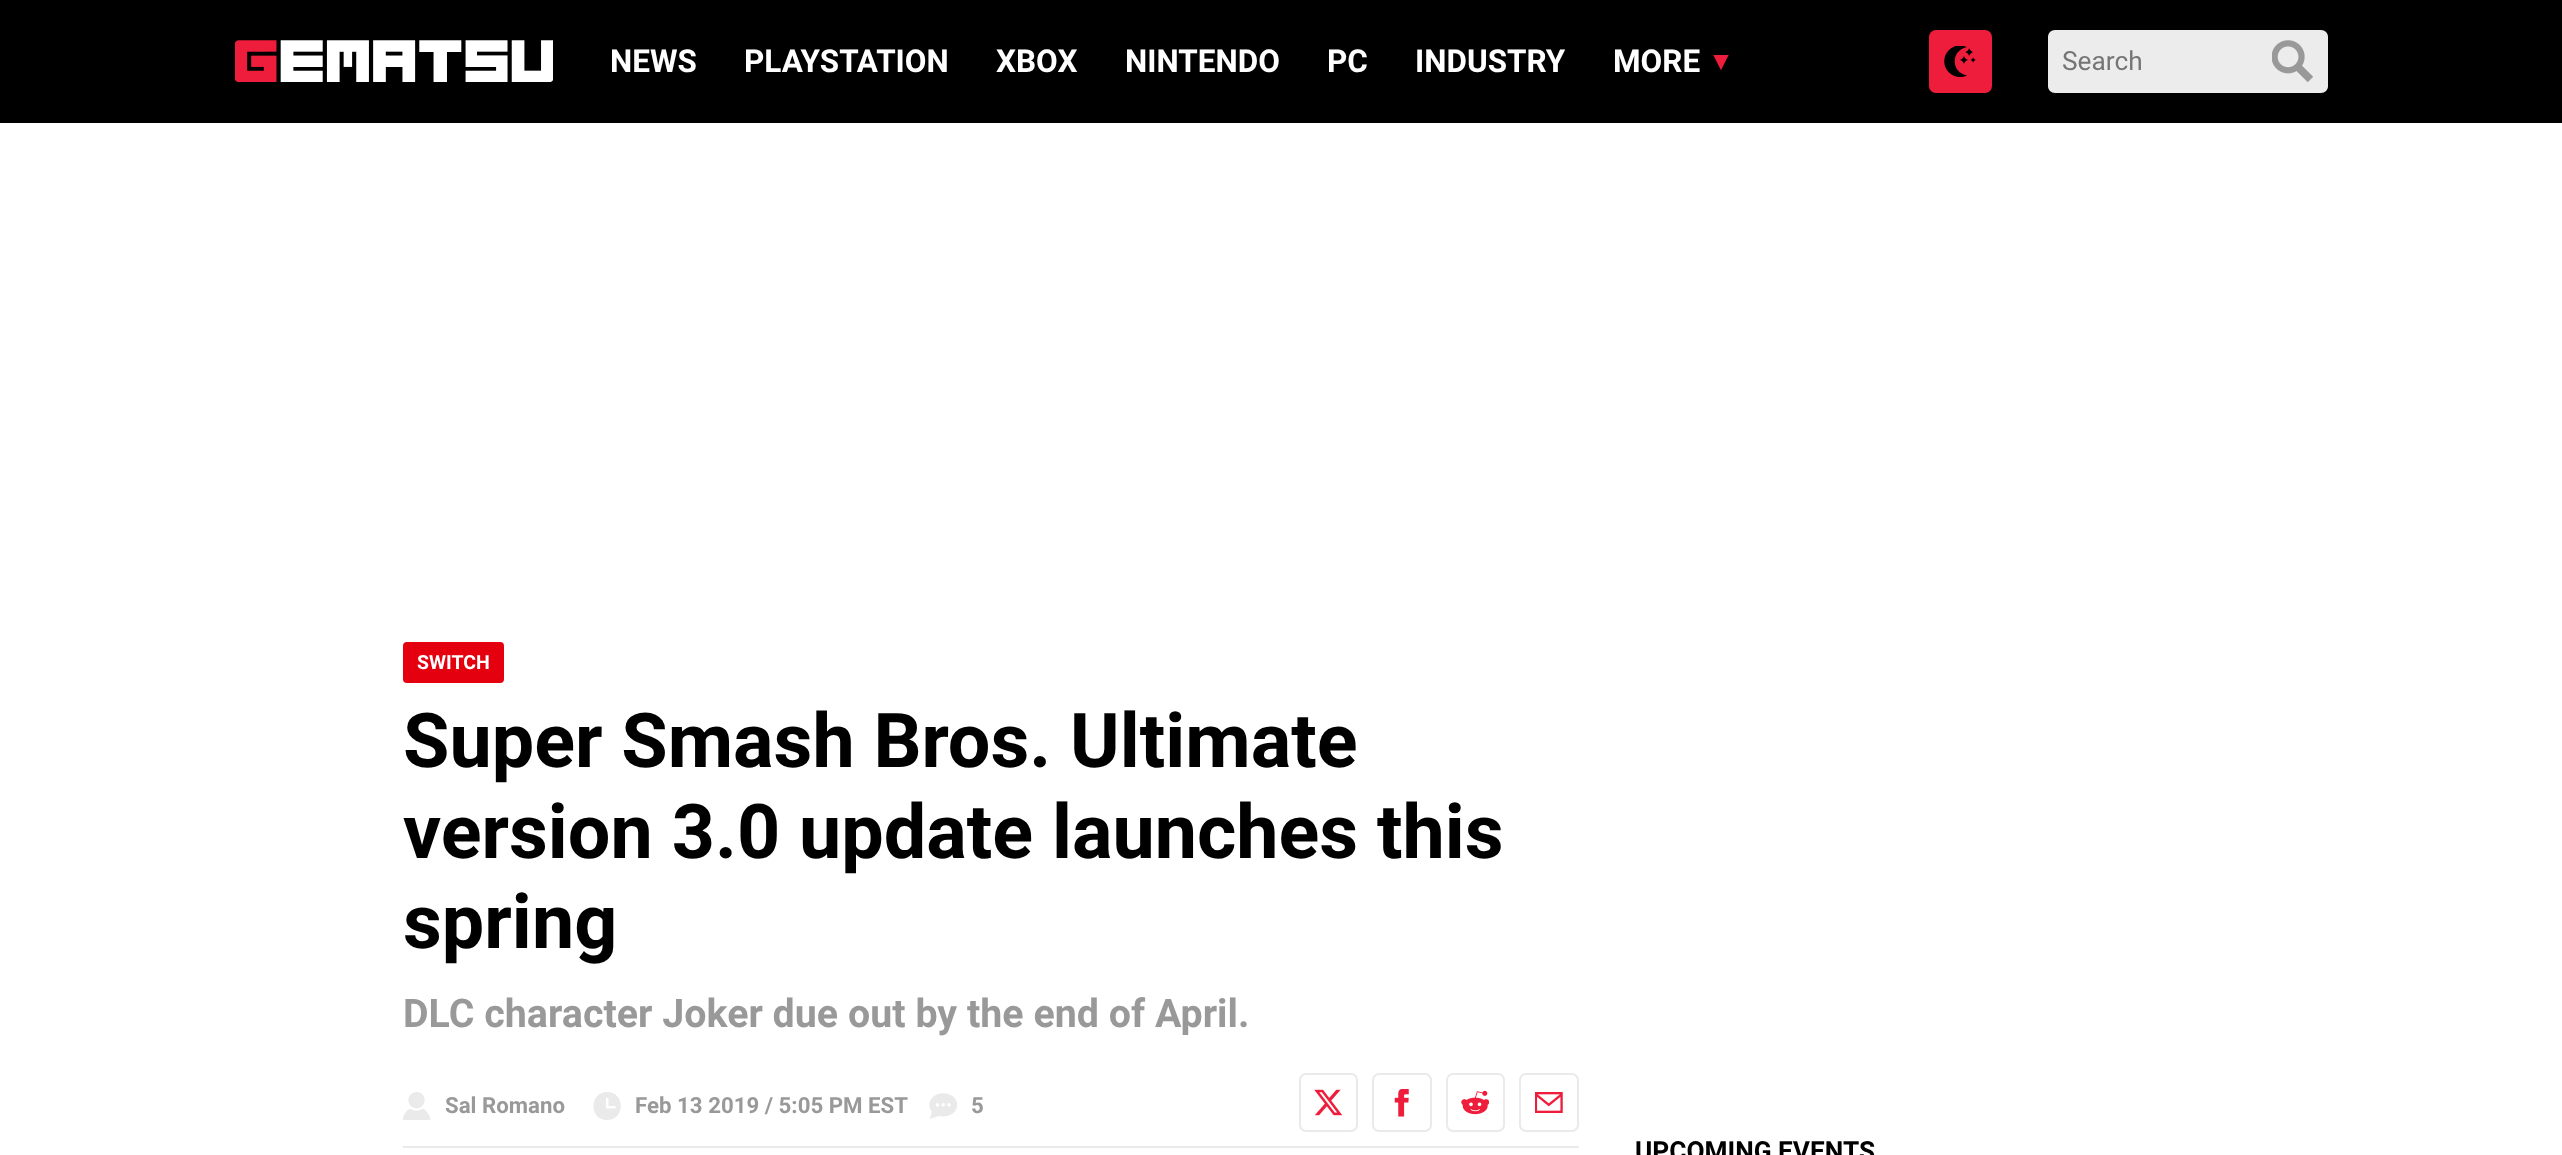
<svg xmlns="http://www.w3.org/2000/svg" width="2562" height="1155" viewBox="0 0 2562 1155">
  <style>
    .t1 { font: bold 31.5px Roboto; fill: #fff; }
    .t2 { font: bold 26.25px Liberation Sans; fill: #ed1d3b; }
    .t3 { font: 26.25px Roboto; fill: #757575; }
    .t4 { font: bold 19.5px Roboto; fill: #fff; }
    .t5 { font: bold 75.5px Roboto; fill: #000; }
    .t6 { font: bold 39.4px Roboto; fill: #999; }
    .t7 { font: bold 22.25px Roboto; fill: #999; }
    .t8 { font: bold 26.25px Roboto; fill: #000; }
  </style>
  <rect width="100%" height="100%" fill="#fff"/>
  <rect x="0" y="0" width="2562" height="123" fill="#000"/>
  <image x="235" y="40" width="318" height="42" href="images/1.png"/>
  <text x="610" y="72" class="t1">NEWS</text>
  <text x="744" y="72" class="t1">PLAYSTATION</text>
  <text x="996" y="72" class="t1">XBOX</text>
  <text x="1125" y="72" class="t1">NINTENDO</text>
  <text x="1327" y="72" class="t1">PC</text>
  <text x="1415" y="72" class="t1">INDUSTRY</text>
  <text x="1613" y="72" class="t1">MORE</text>
  <text x="1708" y="70" class="t2">▼</text>
  <rect x="1930" y="31" width="61" height="61" rx="6" fill="#ed1d3b" stroke="#ed1d3b" stroke-width="2"/>
  <image x="1944" y="46" width="32" height="31" href="images/2.png"/>
  <path d="M2055 30H2258V93H2055C2051 93 2048 90 2048 86V37C2048 33 2051 30 2055 30Z" fill="#ececec"/>
  <text x="2062" y="70" class="t3">Search</text>
  <path d="M2258 30H2321C2325 30 2328 33 2328 37V86C2328 90 2325 93 2321 93H2258Z" fill="#ececec"/>
  <image x="2272" y="40" width="41" height="42" href="images/3.png"/>
  <rect x="403" y="642" width="101" height="41" rx="4" fill="#e4000f"/>
  <text x="417" y="669" class="t4">SWITCH</text>
  <text x="403" y="767" class="t5">Super Smash Bros. Ultimate</text>
  <text x="403" y="858" class="t5">version 3.0 update launches this</text>
  <text x="403" y="948" class="t5">spring</text>
  <text x="403" y="1027" class="t6">DLC character Joker due out by the end of April.</text>
  <rect x="403" y="1146" width="1176" height="2" fill="#eaeaea"/>
  <image x="403" y="1092" width="28" height="28" href="images/4.png"/>
  <text x="445" y="1113" class="t7">Sal Romano</text>
  <path d="M607 1092C589 1092 589 1120 607 1120C625.5 1120 625.5 1092 607 1092ZM615.5 1108.5H606V1098H608.5V1106H615.5Z" fill="#eaeaea"/>
  <text x="635" y="1113" class="t7">Feb 13 2019 / 5:05 PM EST</text>
  <image x="929" y="1093" width="28" height="26" href="images/5.png"/>
  <text x="971" y="1113" class="t7">5</text>
  <rect x="1300" y="1074" width="57" height="57" rx="6" fill="none" stroke="#eaeaea" stroke-width="2"/>
  <image x="1314" y="1089" width="28" height="27" href="images/6.png"/>
  <rect x="1373" y="1074" width="58" height="57" rx="6" fill="none" stroke="#eaeaea" stroke-width="2"/>
  <image x="1394" y="1089" width="15" height="28" href="images/7.png"/>
  <rect x="1447" y="1074" width="57" height="57" rx="6" fill="none" stroke="#eaeaea" stroke-width="2"/>
  <image x="1461" y="1090" width="28" height="25" href="images/8.png"/>
  <rect x="1520" y="1074" width="58" height="57" rx="6" fill="none" stroke="#eaeaea" stroke-width="2"/>
  <image x="1535" y="1092" width="28" height="21" href="images/9.png"/>
  <text x="1635" y="1160" class="t8">UPCOMING EVENTS</text>
</svg>
